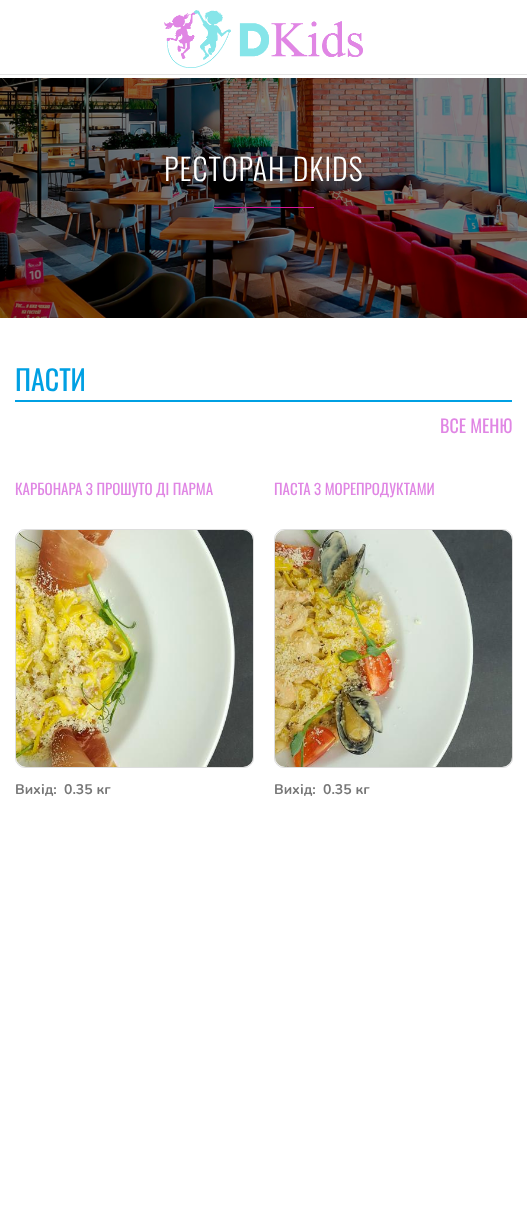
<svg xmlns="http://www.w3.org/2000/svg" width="527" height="1213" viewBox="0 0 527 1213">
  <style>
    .t1 { font: 300 30px Oswald; letter-spacing: 1px; fill: #fff; }
    .t2 { font: 28px Oswald; fill: #00a0e3; }
    .t3 { font: 18px Oswald; fill: #e086e4; }
    .t4 { font: 15px Oswald; fill: #e086e4; }
    .t5 { font: 200 14px Nunito; fill: #777; }
  </style>
  <rect width="100%" height="100%" fill="#fff"/>
  <rect x="0" y="74" width="527" height="1" fill="#e4e4e4"/>
  <image x="164" y="10" width="199" height="58" href="images/1.png"/>
  <image x="0" y="78" width="527" height="240" href="images/2.png"/>
  <text x="164" y="181" class="t1">РЕСТОРАН DKIDS</text>
  <rect x="182" y="207" width="164" height="1" fill="#00000012"/>
  <rect x="214" y="207" width="100" height="1" fill="#d91897"/>
  <rect x="15" y="400" width="497" height="2" fill="#00a0e3"/>
  <text x="15" y="391" class="t2">ПАСТИ</text>
  <text x="440" y="433" class="t3">ВСЕ МЕНЮ</text>
  <text x="15" y="495" class="t4">КАРБОНАРА З ПРОШУТО ДІ ПАРМА</text>
  <rect x="15.5" y="529.5" width="238" height="238" rx="9.5" fill="none" stroke="#ddd"/>
  <image x="16" y="530" width="237" height="237" href="images/3.png"/>
  <text x="15" y="794" class="t5">Вихід:</text>
  <text x="64" y="794" class="t5">0.35 кг</text>
  <text x="274" y="495" class="t4">ПАСТА З МОРЕПРОДУКТАМИ</text>
  <rect x="274.5" y="529.5" width="238" height="238" rx="9.5" fill="none" stroke="#ddd"/>
  <image x="275" y="530" width="237" height="237" href="images/4.png"/>
  <text x="274" y="794" class="t5">Вихід:</text>
  <text x="323" y="794" class="t5">0.35 кг</text>
</svg>
